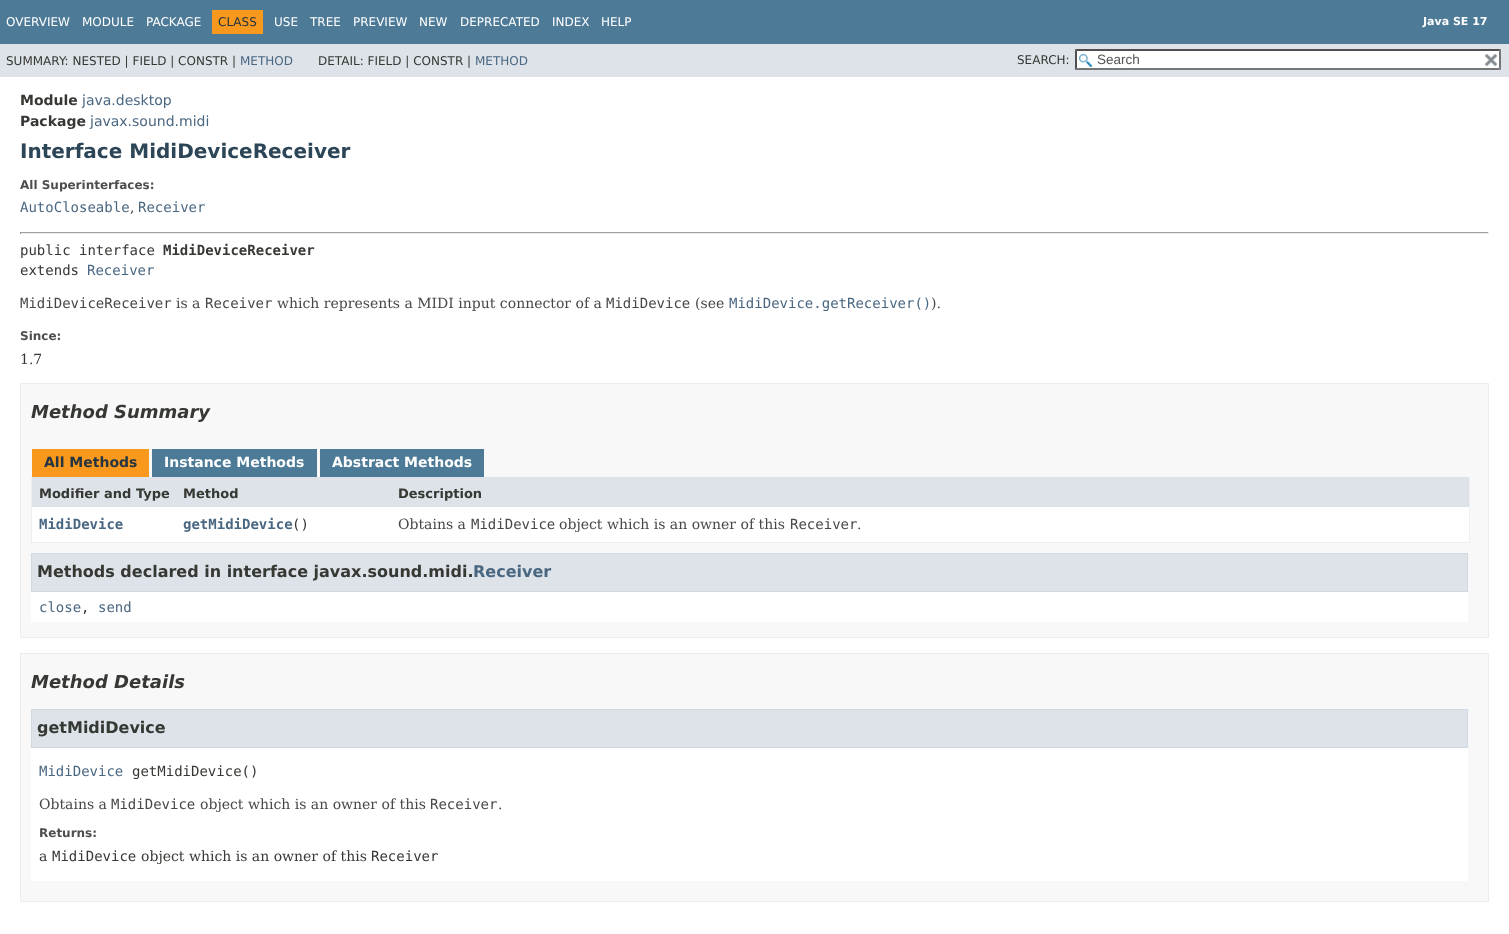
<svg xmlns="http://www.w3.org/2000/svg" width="1509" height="934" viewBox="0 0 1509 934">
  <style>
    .t1 { font: 12px DejaVu Sans; fill: #fff; }
    .t2 { font: 12px DejaVu Sans; fill: #253441; }
    .t3 { font: bold 11px DejaVu Sans; fill: #fff; }
    .t4 { font: 12px DejaVu Sans; fill: #353833; }
    .t5 { font: 12px DejaVu Sans; fill: #4a6782; }
    .t6 { font: 13.5px Liberation Sans; fill: #545454; }
    .t7 { font: bold 14px DejaVu Sans; fill: #353833; }
    .t8 { font: 14px DejaVu Sans; fill: #4a6782; }
    .t9 { font: bold 20px DejaVu Sans; fill: #2c4557; }
    .t10 { font: bold 12px DejaVu Sans; fill: #4e4e4e; }
    .t11 { font: 14px DejaVu Sans Mono; fill: #4a6782; }
    .t12 { font: 14px DejaVu Serif; fill: #353833; }
    .t13 { font: 14px DejaVu Sans Mono; fill: #353833; }
    .t14 { font: bold 14px DejaVu Sans Mono; fill: #353833; }
    .t15 { font: 14px DejaVu Sans Mono; fill: #474747; }
    .t16 { font: 14px DejaVu Serif; fill: #474747; }
    .t17 { font: italic bold 18px DejaVu Sans; fill: #353833; }
    .t18 { font: bold 14px DejaVu Sans; fill: #253441; }
    .t19 { font: bold 14px DejaVu Sans; fill: #fff; }
    .t20 { font: bold 13px DejaVu Sans; fill: #353833; }
    .t21 { font: bold 14px DejaVu Sans Mono; fill: #4a6782; }
    .t22 { font: bold 16px DejaVu Sans; fill: #353833; }
    .t23 { font: bold 16px DejaVu Sans; fill: #4a6782; }
  </style>
  <rect width="100%" height="100%" fill="#fff"/>
  <rect x="0" y="0" width="1509" height="44" fill="#4d7a97"/>
  <text x="6" y="26" class="t1">OVERVIEW</text>
  <text x="82" y="26" class="t1">MODULE</text>
  <text x="146" y="26" class="t1">PACKAGE</text>
  <rect x="212" y="10" width="51" height="24" fill="#f8981d"/>
  <text x="218" y="26" class="t2">CLASS</text>
  <text x="274" y="26" class="t1">USE</text>
  <text x="310" y="26" class="t1">TREE</text>
  <text x="353" y="26" class="t1">PREVIEW</text>
  <text x="419" y="26" class="t1">NEW</text>
  <text x="460" y="26" class="t1">DEPRECATED</text>
  <text x="552" y="26" class="t1">INDEX</text>
  <text x="601" y="26" class="t1">HELP</text>
  <text x="1423" y="25" class="t3">Java SE 17</text>
  <rect x="0" y="44" width="1509" height="33" fill="#dee3e9"/>
  <text x="6" y="65" class="t4">SUMMARY: NESTED | FIELD | CONSTR |</text>
  <text x="240" y="65" class="t5">METHOD</text>
  <text x="318" y="65" class="t4">DETAIL: FIELD | CONSTR |</text>
  <text x="475" y="65" class="t5">METHOD</text>
  <text x="1017" y="64" class="t4">SEARCH:</text>
  <rect x="1075" y="49" width="426" height="21" fill="#fff"/>
  <image x="1079" y="54" width="13" height="13" href="images/1.png"/>
  <path d="M1075 49H1501L1499 51H1077Z" fill="#4f4f4f"/>
  <path d="M1501 49V70L1499 68V51Z" fill="#767676"/>
  <path d="M1501 70H1075L1077 68H1499Z" fill="#767676"/>
  <path d="M1075 70V49L1077 51V68Z" fill="#4f4f4f"/>
  <text x="1097" y="64" class="t6">Search</text>
  <image x="1484" y="54" width="14" height="12" href="images/2.png"/>
  <text x="20" y="105" class="t7">Module</text>
  <text x="82" y="105" class="t8">java.desktop</text>
  <text x="20" y="126" class="t7">Package</text>
  <text x="90" y="126" class="t8">javax.sound.midi</text>
  <text x="20" y="158" class="t9">Interface MidiDeviceReceiver</text>
  <text x="20" y="189" class="t10">All Superinterfaces:</text>
  <text x="20" y="212" class="t11">AutoCloseable</text>
  <text x="130" y="212" class="t12">,</text>
  <text x="138" y="212" class="t11">Receiver</text>
  <rect x="20" y="232" width="1469" height="1" fill="#9f9f9f"/>
  <rect x="1488" y="232" width="1" height="2" fill="#eee"/>
  <rect x="20" y="233" width="1469" height="1" fill="#eee"/>
  <rect x="20" y="232" width="1" height="2" fill="#9f9f9f"/>
  <text x="20" y="255" class="t13">public interface</text>
  <text x="163" y="255" class="t14">MidiDeviceReceiver</text>
  <text x="20" y="275" class="t13">extends</text>
  <text x="87" y="275" class="t11">Receiver</text>
  <text x="20" y="308" class="t15">MidiDeviceReceiver</text>
  <text x="176" y="308" class="t16">is a</text>
  <text x="205" y="308" class="t15">Receiver</text>
  <text x="277" y="308" class="t16">which represents a MIDI input connector of a</text>
  <text x="606" y="308" class="t15">MidiDevice</text>
  <text x="695" y="308" class="t16">(see</text>
  <text x="729" y="308" class="t11">MidiDevice.getReceiver()</text>
  <text x="931" y="308" class="t16">).</text>
  <text x="20" y="340" class="t10">Since:</text>
  <text x="20" y="364" class="t12">1.7</text>
  <rect x="20.5" y="383.5" width="1468" height="254" fill="#f8f8f8" stroke="#ededed"/>
  <text x="31" y="418" class="t17">Method Summary</text>
  <rect x="32" y="449" width="117" height="28" fill="#f8981d"/>
  <text x="44" y="467" class="t18">All Methods</text>
  <rect x="152" y="449" width="165" height="28" fill="#4d7a97"/>
  <text x="164" y="467" class="t19">Instance Methods</text>
  <rect x="320" y="449" width="164" height="28" fill="#4d7a97"/>
  <text x="332" y="467" class="t19">Abstract Methods</text>
  <rect x="1469" y="477" width="1" height="66" fill="#eee"/>
  <rect x="31" y="542" width="1439" height="1" fill="#eee"/>
  <rect x="31" y="477" width="1" height="66" fill="#eee"/>
  <rect x="32" y="477" width="359" height="30" fill="#dee3e9"/>
  <text x="39" y="498" class="t20">Modifier and Type</text>
  <text x="183" y="498" class="t20">Method</text>
  <rect x="391" y="477" width="1078" height="30" fill="#dee3e9"/>
  <text x="398" y="498" class="t20">Description</text>
  <rect x="32" y="507" width="359" height="35" fill="#fff"/>
  <text x="39" y="529" class="t21">MidiDevice</text>
  <text x="183" y="529" class="t21">getMidiDevice</text>
  <text x="292" y="529" class="t13">()</text>
  <rect x="391" y="507" width="1078" height="35" fill="#fff"/>
  <text x="398" y="529" class="t16">Obtains a</text>
  <text x="471" y="529" class="t15">MidiDevice</text>
  <text x="559" y="529" class="t16">object which is an owner of this</text>
  <text x="790" y="529" class="t15">Receiver</text>
  <text x="857" y="529" class="t16">.</text>
  <rect x="31" y="592" width="1437" height="30" fill="#fff"/>
  <rect x="31.5" y="553.5" width="1436" height="38" fill="#dee3e9" stroke="#d0d9e0"/>
  <text x="37" y="577" class="t22">Methods declared in interface javax.sound.midi.</text>
  <text x="473" y="577" class="t23">Receiver</text>
  <text x="39" y="612" class="t11">close</text>
  <text x="81" y="612" class="t13">,</text>
  <text x="98" y="612" class="t11">send</text>
  <rect x="20.5" y="653.5" width="1468" height="248" fill="#f8f8f8" stroke="#ededed"/>
  <text x="31" y="688" class="t17">Method Details</text>
  <rect x="31" y="748" width="1437" height="133" fill="#fff"/>
  <rect x="31.5" y="709.5" width="1436" height="38" fill="#dee3e9" stroke="#d0d9e0"/>
  <text x="37" y="733" class="t22">getMidiDevice</text>
  <text x="39" y="776" class="t11">MidiDevice</text>
  <text x="132" y="776" class="t13">getMidiDevice()</text>
  <text x="39" y="809" class="t16">Obtains a</text>
  <text x="111" y="809" class="t15">MidiDevice</text>
  <text x="200" y="809" class="t16">object which is an owner of this</text>
  <text x="430" y="809" class="t15">Receiver</text>
  <text x="498" y="809" class="t16">.</text>
  <text x="39" y="837" class="t10">Returns:</text>
  <text x="39" y="861" class="t12">a</text>
  <text x="52" y="861" class="t13">MidiDevice</text>
  <text x="141" y="861" class="t12">object which is an owner of this</text>
  <text x="371" y="861" class="t13">Receiver</text>
</svg>
